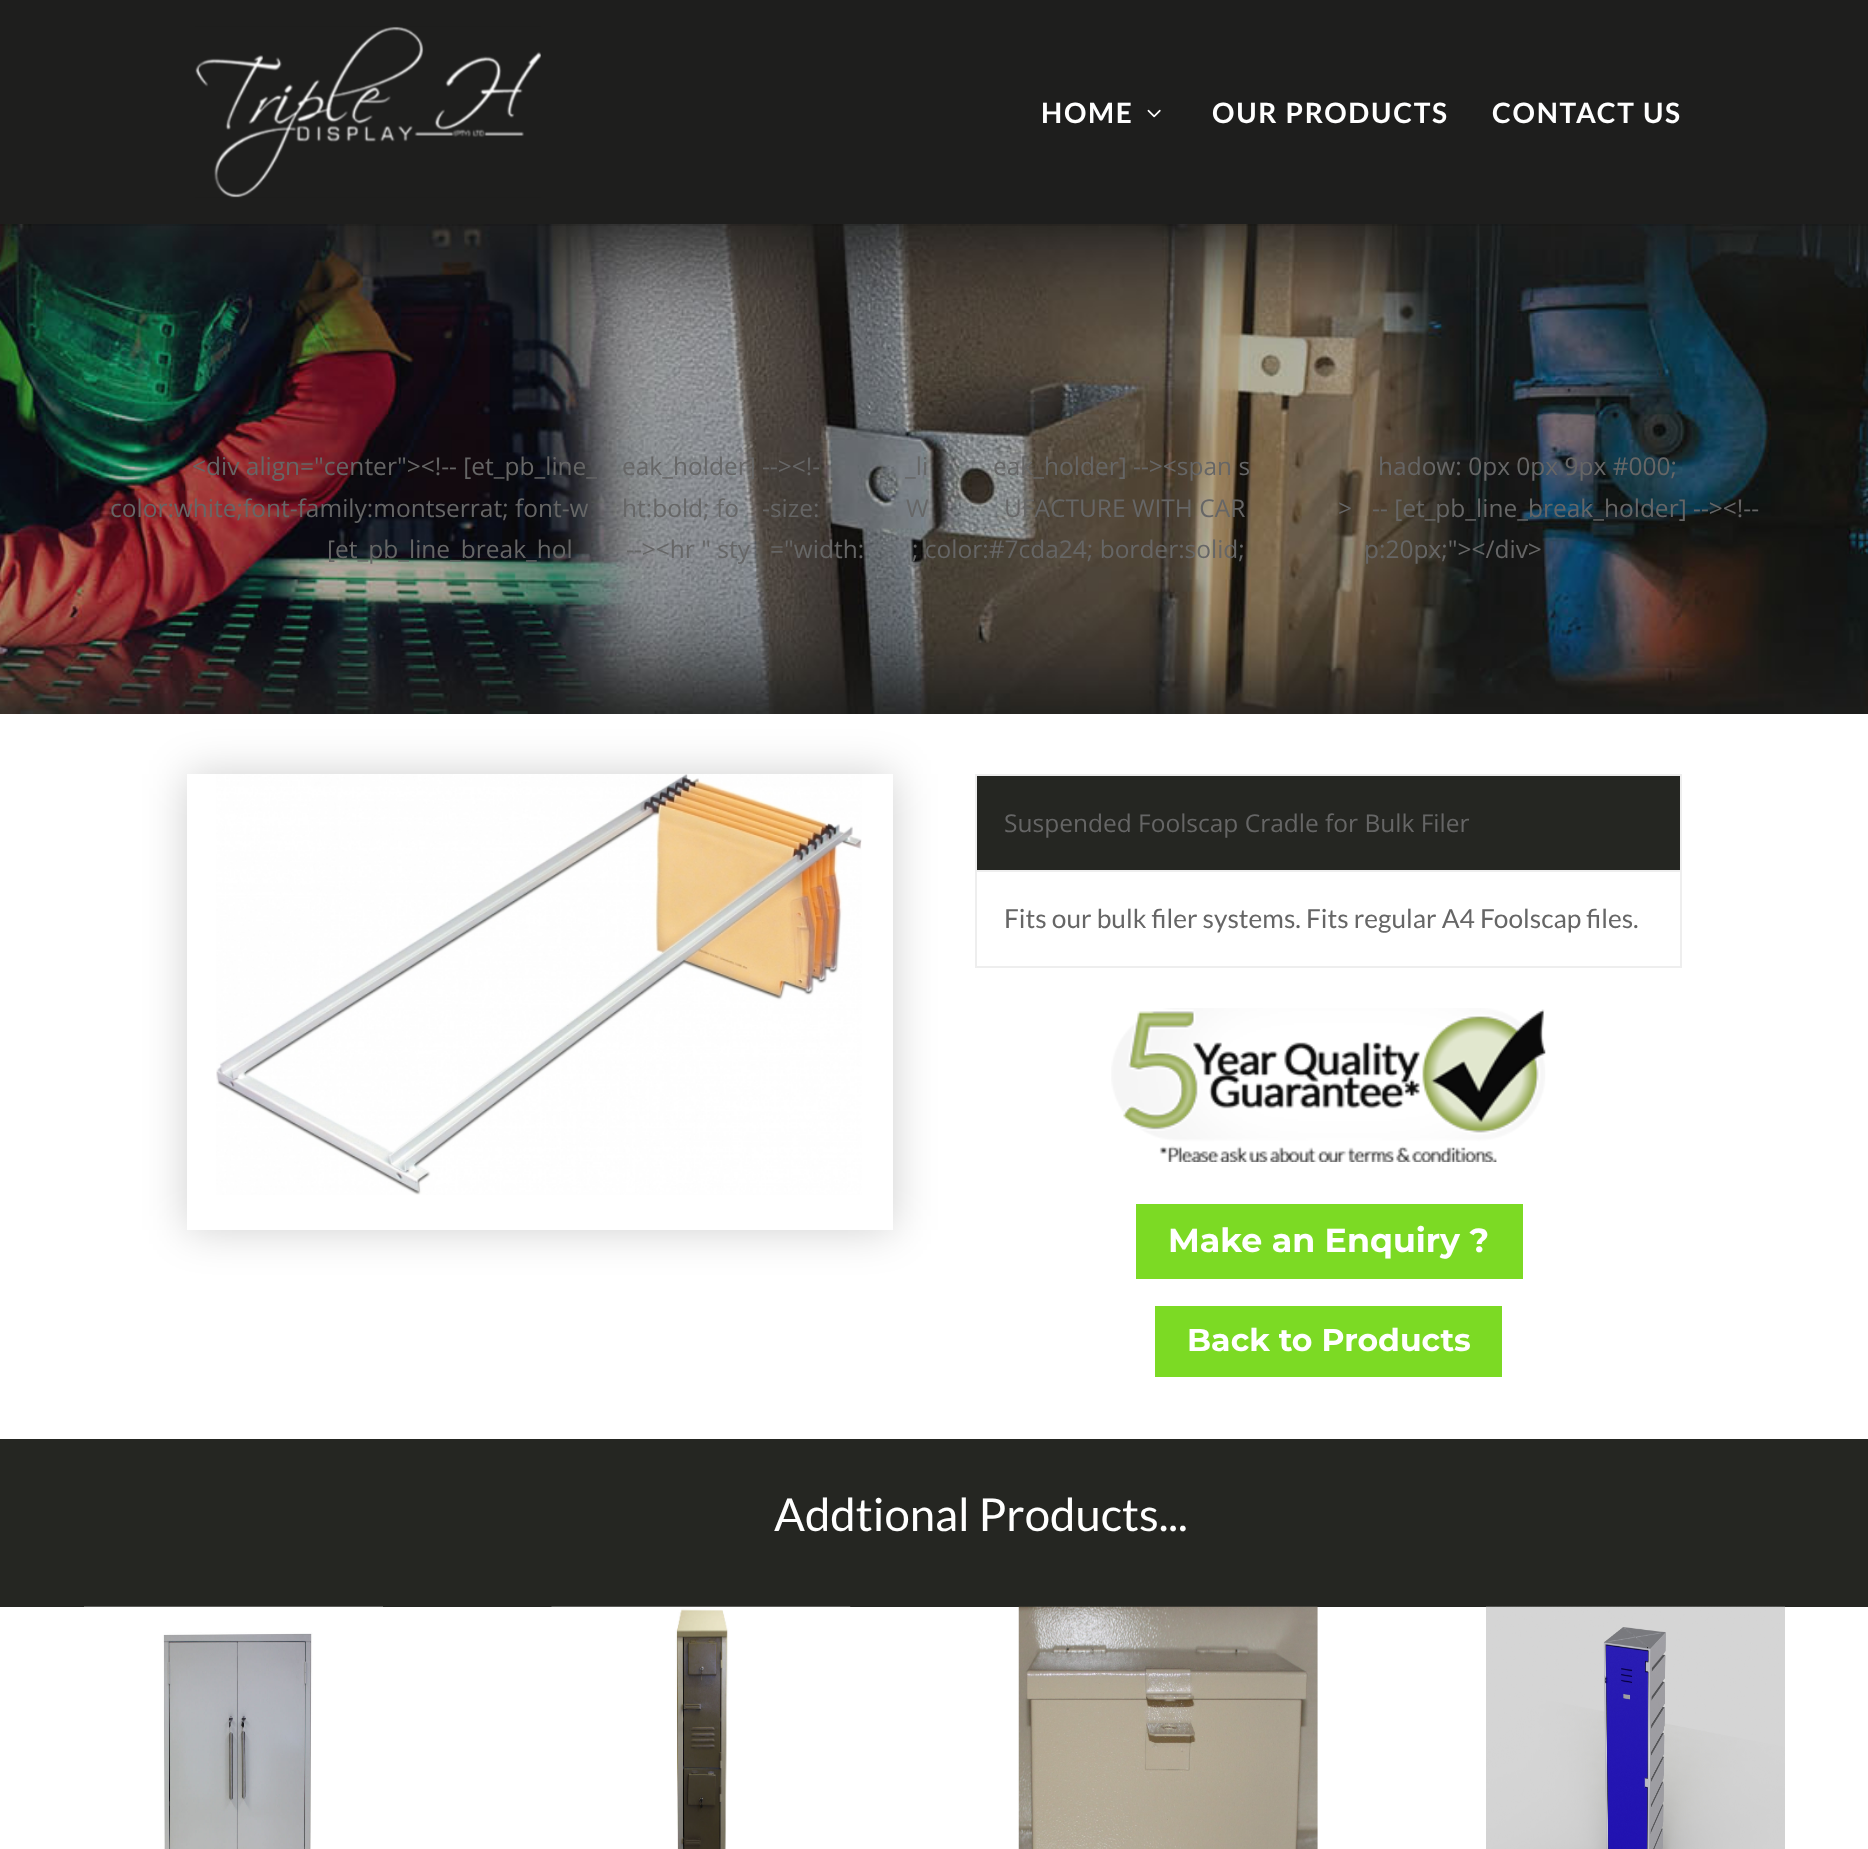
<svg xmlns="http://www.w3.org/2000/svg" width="1868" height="1849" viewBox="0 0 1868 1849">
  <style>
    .t1 { font: bold 28px Lato; letter-spacing: 1.75px; fill: #fff; }
    .t2 { font: 24.5px Open Sans; fill: #666; }
    .t3 { font: 26.25px Lato; fill: #666; }
    .t4 { font: bold 33.25px Montserrat; fill: #fff; }
    .t5 { font: bold 31.5px Montserrat; fill: #fff; }
    .t6 { font: 45.5px Lato; fill: #fff; }
  </style>
  <defs>
    <clipPath id="clip1"><path d="M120 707H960V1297H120ZM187 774H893V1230H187Z" clip-rule="evenodd"/></clipPath>
  </defs>
  <rect width="100%" height="100%" fill="#fff"/>
  <image x="0" y="224" width="1868" height="490" href="images/3.png"/>
  <rect x="0" y="224" width="1868" height="2" fill="#0000001a"/>
  <rect x="0" y="0" width="1868" height="224" fill="#1e1e1d"/>
  <image x="195" y="26" width="346" height="172" href="images/1.png"/>
  <text x="1041" y="123" class="t1">HOME</text>
  <image x="1147" y="109" width="14" height="9" href="images/2.png"/>
  <text x="1212" y="123" class="t1">OUR PRODUCTS</text>
  <text x="1492" y="123" class="t1">CONTACT US</text>
  <text x="192" y="475" class="t2">&lt;div align="center"&gt;&lt;!-- [et_pb_line_</text>
  <text x="622" y="475" class="t2">eak_holder] --&gt;&lt;!-</text>
  <text x="905" y="475" class="t2">_li</text>
  <text x="993" y="475" class="t2">eak_holder] --&gt;&lt;span s</text>
  <text x="1378" y="475" class="t2">hadow: 0px 0px 9px #000;</text>
  <text x="110" y="517" class="t2">color:white;font-family:montserrat; font-w</text>
  <text x="622" y="517" class="t2">ht:bold; fo</text>
  <text x="762" y="517" class="t2">-size:</text>
  <text x="906" y="517" class="t2">W</text>
  <text x="1004" y="517" class="t2">UFACTURE WITH CAR</text>
  <text x="1338" y="517" class="t2">&gt;</text>
  <text x="1372" y="517" class="t2">-- [et_pb_line_break_holder] --&gt;&lt;!--</text>
  <text x="327" y="558" class="t2">[et_pb_line_break_hol</text>
  <text x="626" y="558" class="t2">--&gt;&lt;hr " sty</text>
  <text x="770" y="558" class="t2">="width:</text>
  <text x="912" y="558" class="t2">; color:#7cda24; border:solid;</text>
  <text x="1364" y="558" class="t2">p:20px;"&gt;&lt;/div&gt;</text>
  <g clip-path="url(#clip1)">
    <rect x="187" y="774" width="706" height="456" fill="#00000030" filter="blur(22px)"/>
  </g>
  <image x="216" y="774" width="646" height="421" href="images/4.png"/>
  <rect x="975" y="774" width="707" height="2" fill="#eee"/>
  <rect x="1680" y="774" width="2" height="194" fill="#eee"/>
  <rect x="975" y="966" width="707" height="2" fill="#eee"/>
  <rect x="975" y="774" width="2" height="194" fill="#eee"/>
  <rect x="977" y="776" width="703" height="94" fill="#252622"/>
  <text x="1004" y="832" class="t2">Suspended Foolscap Cradle for Bulk Filer</text>
  <rect x="975" y="870" width="707" height="2" fill="#eee"/>
  <text x="1004" y="928" class="t3">Fits our bulk filer systems. Fits regular A4 Foolscap files.</text>
  <image x="1111" y="1008" width="435" height="154" href="images/5.png"/>
  <rect x="1136" y="1204" width="387" height="75" fill="#7cda24"/>
  <text x="1168" y="1252" class="t4">Make an Enquiry ?</text>
  <rect x="1155" y="1306" width="347" height="71" fill="#7cda24"/>
  <text x="1187" y="1351" class="t5">Back to Products</text>
  <rect x="0" y="1439" width="1868" height="168" fill="#252622"/>
  <text x="774" y="1531" class="t6">Addtional Products...</text>
  <image x="84" y="1606" width="299" height="243" href="images/6.png"/>
  <image x="551" y="1606" width="300" height="243" href="images/7.png"/>
  <image x="1018" y="1606" width="300" height="243" href="images/8.png"/>
  <image x="1486" y="1606" width="299" height="243" href="images/9.png"/>
</svg>
